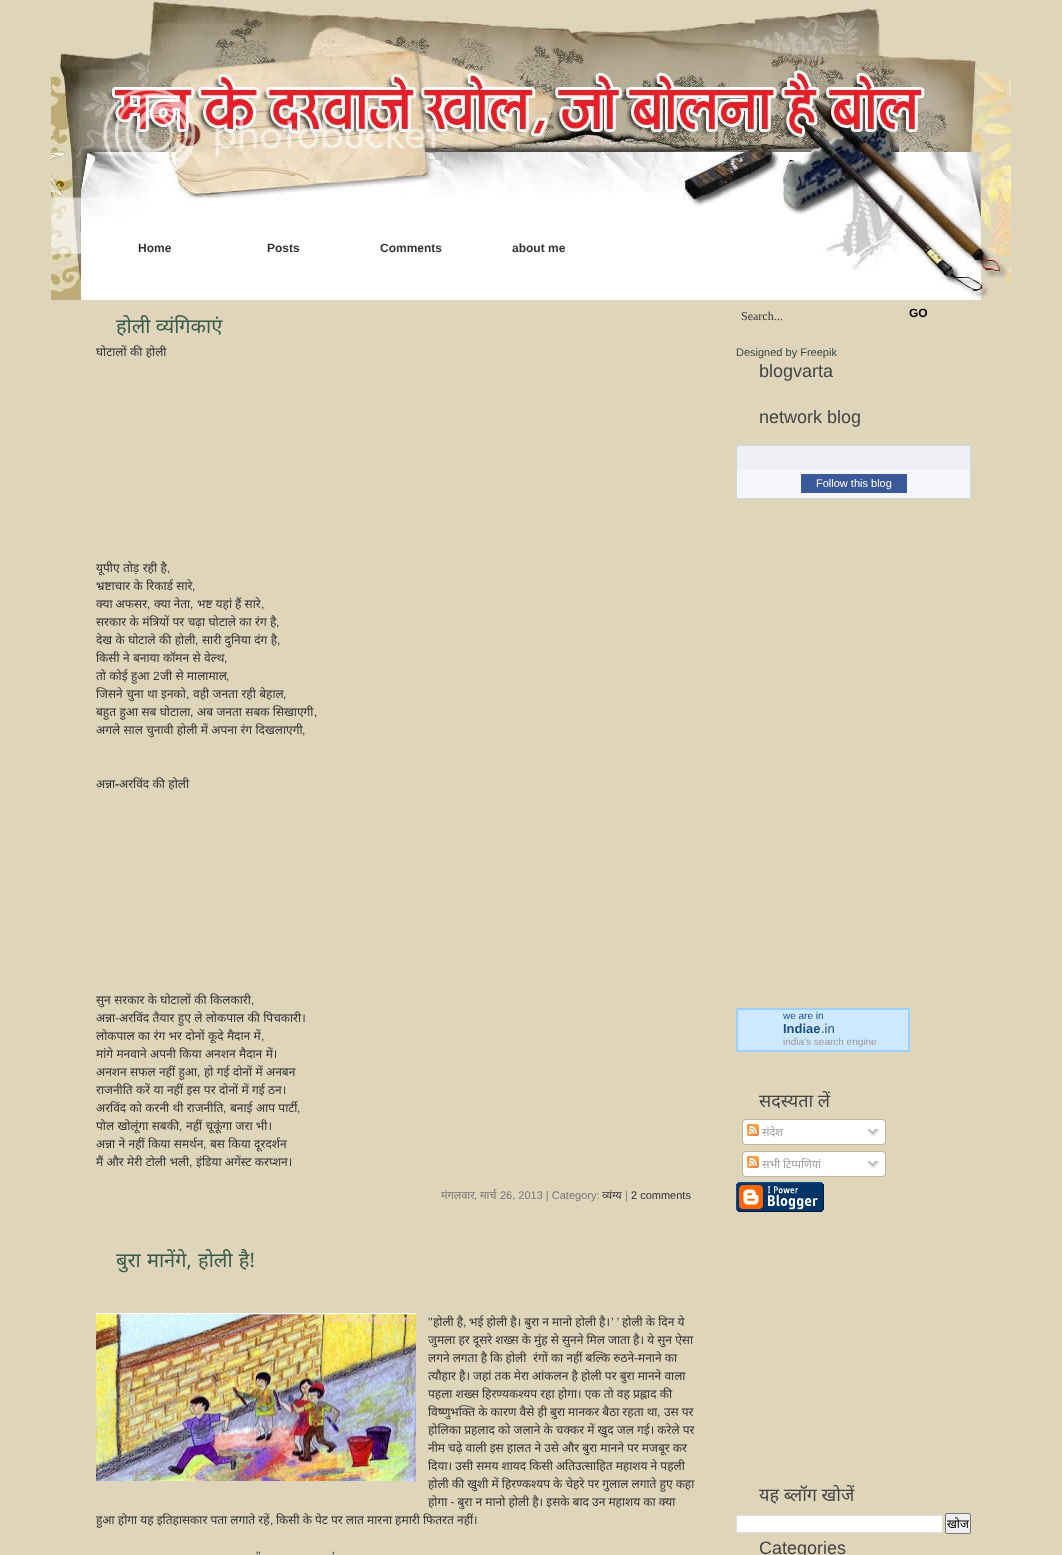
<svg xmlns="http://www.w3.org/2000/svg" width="1062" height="1555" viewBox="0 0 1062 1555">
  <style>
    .t1 { font: bold 12px Liberation Sans; fill: #333; }
    .t2 { font: 20px Noto Sans; fill: #3b5a4a; }
    .t3 { font: 12px Noto Sans; fill: #333; }
    .t4 { font: 12px Liberation Sans; fill: #333; }
    .t5 { font: 11px Noto Sans; fill: #777; }
    .t6 { font: 11px Liberation Sans; fill: #777; }
    .t7 { font: 11px Noto Sans; fill: #333; }
    .t8 { font: 11px Liberation Sans; fill: #333; }
    .t9 { font: 12px Liberation Serif; fill: #333; }
    .t10 { font: bold 12px Liberation Sans; fill: #000; }
    .t11 { font: 11px Liberation Sans; fill: #38463e; }
    .t12 { font: 18px Liberation Sans; fill: #444; }
    .t13 { font: 11px Liberation Sans; fill: #fff; }
    .t14 { font: 10px Liberation Sans; fill: #1e4f81; }
    .t15 { font: bold 13px Liberation Sans; fill: #1e4f81; }
    .t16 { font: 13px Liberation Sans; fill: #1e4f81; }
    .t17 { font: 10px Liberation Sans; fill: #999; }
    .t18 { font: 18px Noto Sans; fill: #444; }
    .t19 { font: 11px Noto Sans; fill: #999; }
    .t20 { font: 12px Noto Sans; fill: #000; }
  </style>
  <defs>
    <clipPath id="clip1"><rect x="947" y="1515" width="22" height="17"/></clipPath>
  </defs>
  <rect width="100%" height="100%" fill="#ded5ba"/>
  <image x="51" y="0" width="960" height="300" href="images/1.png"/>
  <text x="138" y="252" class="t1">Home</text>
  <text x="267" y="252" class="t1">Posts</text>
  <text x="380" y="252" class="t1">Comments</text>
  <text x="512" y="252" class="t1">about me</text>
  <text x="116" y="333" class="t2">होली व्यंगिकाएं</text>
  <text x="96" y="356" word-spacing="0.25" class="t3">घोटालों की होली</text>
  <text x="96" y="572" word-spacing="0.25" class="t3">यूपीए तोड़ रही है</text>
  <text x="167" y="572" class="t4">,</text>
  <text x="96" y="590" word-spacing="0.25" class="t3">भ्रष्टाचार के रिकार्ड सारे</text>
  <text x="192" y="590" class="t4">,</text>
  <text x="96" y="608" class="t3">क्या अफसर</text>
  <text x="147" y="608" class="t4">,</text>
  <text x="154" y="608" class="t3">क्या नेता</text>
  <text x="190" y="608" class="t4">,</text>
  <text x="197" y="608" class="t3">भष्ट यहां हैं सारे</text>
  <text x="261" y="608" class="t4">,</text>
  <text x="96" y="626" word-spacing="0.25" class="t3">सरकार के मंत्रियों पर चढ़ा घोटाले का रंग है</text>
  <text x="276" y="626" class="t4">,</text>
  <text x="96" y="644" word-spacing="0.25" class="t3">देख के घोटाले की होली</text>
  <text x="195" y="644" class="t4">,</text>
  <text x="202" y="644" word-spacing="0.25" class="t3">सारी दुनिया दंग है</text>
  <text x="277" y="644" class="t4">,</text>
  <text x="96" y="662" word-spacing="0.25" class="t3">किसी ने बनाया कॉमन से वेल्थ</text>
  <text x="224" y="662" class="t4">,</text>
  <text x="96" y="680" word-spacing="0.25" class="t3">तो कोई हुआ</text>
  <text x="153" y="680" class="t4">2</text>
  <text x="160" y="680" word-spacing="0.25" class="t3">जी से मालामाल</text>
  <text x="226" y="680" class="t4">,</text>
  <text x="96" y="698" word-spacing="0.25" class="t3">जिसने चुना था इनको</text>
  <text x="186" y="698" class="t4">,</text>
  <text x="193" y="698" word-spacing="0.25" class="t3">वही जनता रही बेहाल</text>
  <text x="283" y="698" class="t4">,</text>
  <text x="96" y="716" word-spacing="0.25" class="t3">बहुत हुआ सब घोटाला</text>
  <text x="190" y="716" class="t4">,</text>
  <text x="197" y="716" word-spacing="0.25" class="t3">अब जनता सबक सिखाएगी</text>
  <text x="314" y="716" class="t4">,</text>
  <text x="96" y="734" word-spacing="0.25" class="t3">अगले साल चुनावी होली में अपना रंग दिखलाएगी</text>
  <text x="302" y="734" class="t4">,</text>
  <text x="96" y="788" class="t3">अन्ना</text>
  <text x="115" y="788" class="t1">-</text>
  <text x="119" y="788" word-spacing="0.25" class="t3">अरविंद की होली</text>
  <text x="96" y="1004" word-spacing="0.25" class="t3">सुन सरकार के घोटालों की किलकारी</text>
  <text x="251" y="1004" class="t4">,</text>
  <text x="96" y="1022" class="t3">अन्ना</text>
  <text x="115" y="1022" class="t4">-</text>
  <text x="119" y="1022" word-spacing="0.25" class="t3">अरविंद तैयार हुए ले लोकपाल की पिचकारी।</text>
  <text x="96" y="1040" word-spacing="0.25" class="t3">लोकपाल का रंग भर दोनों कूदे मैदान में</text>
  <text x="261" y="1040" class="t4">,</text>
  <text x="96" y="1058" word-spacing="0.25" class="t3">मांगे मनवाने अपनी किया अनशन मैदान में।</text>
  <text x="96" y="1076" word-spacing="0.25" class="t3">अनशन सफल नहीं हुआ</text>
  <text x="197" y="1076" class="t4">,</text>
  <text x="204" y="1076" word-spacing="0.25" class="t3">हो गई दोनों में अनबन</text>
  <text x="96" y="1094" word-spacing="0.25" class="t3">राजनीति करें या नहीं इस पर दोनों में गई ठन।</text>
  <text x="96" y="1112" word-spacing="0.25" class="t3">अरविंद को करनी थी राजनीति</text>
  <text x="223" y="1112" class="t4">,</text>
  <text x="230" y="1112" word-spacing="0.25" class="t3">बनाई आप पार्टी</text>
  <text x="297" y="1112" class="t4">,</text>
  <text x="96" y="1130" word-spacing="0.25" class="t3">पोल खोलूंगा सबकी</text>
  <text x="179" y="1130" class="t4">,</text>
  <text x="186" y="1130" word-spacing="0.25" class="t3">नहीं चूकूंगा जरा भी।</text>
  <text x="96" y="1148" word-spacing="0.25" class="t3">अन्ना ने नहीं किया समर्थन</text>
  <text x="203" y="1148" class="t4">,</text>
  <text x="210" y="1148" word-spacing="0.25" class="t3">बस किया दूरदर्शन</text>
  <text x="96" y="1166" word-spacing="0.25" class="t3">मैं और मेरी टोली भली</text>
  <text x="189" y="1166" class="t4">,</text>
  <text x="196" y="1166" word-spacing="0.25" class="t3">इंडिया अगेंस्ट करप्शन।</text>
  <text x="441" y="1199" class="t5">मंगलवार</text>
  <text x="474" y="1199" class="t6">,</text>
  <text x="480" y="1199" class="t5">मार्च</text>
  <text x="500" y="1199" class="t6">26, 2013 | Category:</text>
  <text x="602" y="1199" class="t7">व्यंग्य</text>
  <text x="625" y="1199" class="t6">|</text>
  <text x="631" y="1199" class="t8">2 comments</text>
  <text x="116" y="1267" word-spacing="1" class="t2">बुरा मानेंगे, होली है!</text>
  <image x="96" y="1313" width="320" height="168" href="images/2.png"/>
  <text x="428" y="1326" class="t4">''</text>
  <text x="433" y="1326" class="t3">होली है</text>
  <text x="469" y="1326" class="t3">भई होली है। बुरा न मानो होली है।</text>
  <text x="622" y="1326" class="t3">होली के दिन ये</text>
  <text x="611" y="1326" class="t4">’ ’</text>
  <text x="463" y="1326" class="t4">,</text>
  <text x="428" y="1344" class="t3">जुमला हर दूसरे शख्स के मुंह से सुनने मिल जाता है। ये सुन ऐसा</text>
  <text x="428" y="1362" class="t3">लगने लगता है कि होली</text>
  <text x="533" y="1362" class="t3">रंगों का नहीं बल्कि रुठने-मनाने का</text>
  <text x="428" y="1380" class="t3">त्यौहार है। जहां तक मेरा आंकलन है होली पर बुरा मानने वाला</text>
  <text x="428" y="1398" class="t3">पहला शख्स हिरण्यकश्यप रहा होगा। एक तो वह प्रह्लाद की</text>
  <text x="428" y="1416" class="t3">विष्णुभक्ति के कारण वैसे ही बुरा मानकर बैठा रहता था</text>
  <text x="657" y="1416" class="t4">,</text>
  <text x="664" y="1416" class="t3">उस पर</text>
  <text x="428" y="1434" class="t3">होलिका प्रहलाद को जलाने के चक्कर में खुद जल गई। करेले पर</text>
  <text x="428" y="1452" class="t3">नीम चढ़े वाली इस हालत ने उसे और बुरा मानने पर मजबूर कर</text>
  <text x="428" y="1470" class="t3">दिया। उसी समय शायद किसी अतिउत्साहित महाशय ने पहली</text>
  <text x="428" y="1488" class="t3">होली की खुशी में हिरण्कश्यप के चेहरे पर गुलाल लगाते हुए कहा</text>
  <text x="428" y="1506" class="t3">होगा - बुरा न मानो होली है। इसके बाद उन महाशय का क्या</text>
  <text x="96" y="1524" class="t3">हुआ होगा यह इतिहासकार पता लगाते रहें</text>
  <text x="270" y="1524" class="t4">,</text>
  <text x="276" y="1524" class="t3">किसी के पेट पर लात मारना हमारी फितरत नहीं।</text>
  <text x="256" y="1560" class="t4">''</text>
  <text x="332" y="1560" class="t4">’</text>
  <text x="741" y="320" class="t9">Search...</text>
  <text x="909" y="317" class="t10">GO</text>
  <text x="736" y="356" class="t11">Designed by Freepik</text>
  <text x="759" y="377" class="t12">blogvarta</text>
  <text x="759" y="423" class="t12">network blog</text>
  <rect x="737" y="469" width="233" height="29" fill="#f5f6f9"/>
  <rect x="736.5" y="445.5" width="234" height="53" fill="none" stroke="#d1d7df"/>
  <rect x="737" y="446" width="233" height="23" fill="#edeff4"/>
  <rect x="801" y="474" width="106" height="19" fill="#3b5998"/>
  <text x="816" y="487" class="t13">Follow this blog</text>
  <rect x="737" y="1009" width="172" height="42" fill="#cee9ff" stroke="#9dcfff" stroke-width="2"/>
  <text x="783" y="1019" class="t14">we are in</text>
  <text x="783" y="1033" class="t15">Indiae</text>
  <text x="821" y="1033" class="t16">.in</text>
  <text x="783" y="1045" class="t17">india's search engine</text>
  <text x="759" y="1107" class="t18">सदस्यता लें</text>
  <image x="742" y="1119" width="144" height="23" href="images/3.png"/>
  <image x="747" y="1124" width="12" height="12" href="images/4.png"/>
  <text x="762" y="1136" class="t19">संदेश</text>
  <image x="867" y="1128" width="13" height="9" href="images/5.png"/>
  <image x="742" y="1142" width="144" height="3" href="images/6.png"/>
  <image x="742" y="1151" width="144" height="23" href="images/3.png"/>
  <image x="747" y="1156" width="12" height="12" href="images/4.png"/>
  <text x="762" y="1168" class="t19">सभी टिप्पणियां</text>
  <image x="867" y="1160" width="13" height="9" href="images/5.png"/>
  <image x="742" y="1174" width="144" height="3" href="images/6.png"/>
  <image x="736" y="1182" width="88" height="30" href="images/7.png"/>
  <text x="759" y="1501" class="t18">यह ब्लॉग खोजें</text>
  <rect x="736.5" y="1515.5" width="206" height="17" fill="#fff" stroke="#ddd"/>
  <rect x="945.5" y="1513.5" width="25" height="20" rx="1.5" fill="#efefef" stroke="#767676"/>
  <g clip-path="url(#clip1)">
    <text x="947" y="1528" class="t20">खोज</text>
  </g>
  <text x="759" y="1554" class="t12">Categories</text>
</svg>
